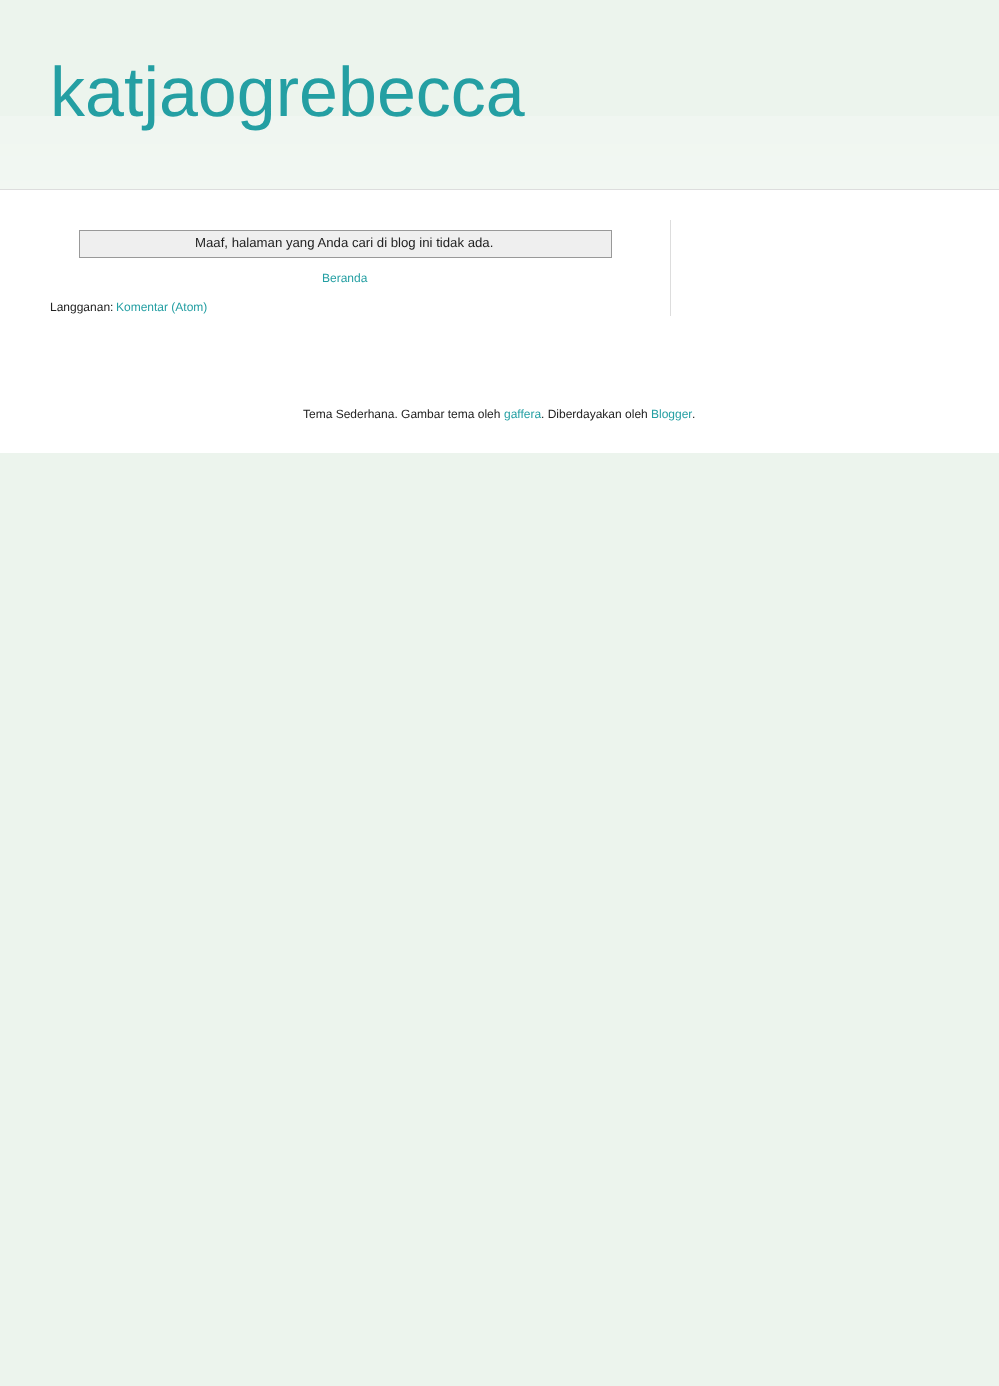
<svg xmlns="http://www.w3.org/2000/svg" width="999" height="1386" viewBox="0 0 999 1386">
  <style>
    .t1 { font: 70px Liberation Sans; fill: #249fa3; }
    .t2 { font: 13.2px Liberation Sans; fill: #222; }
    .t3 { font: 12px Liberation Sans; fill: #249fa3; }
    .t4 { font: 12px Liberation Sans; fill: #222; }
  </style>
  <rect width="100%" height="100%" fill="#ecf4ed"/>
  <image x="0" y="116" width="999" height="73" href="images/1.png"/>
  <text x="50" y="116" class="t1">katjaogrebecca</text>
  <rect x="0" y="190" width="999" height="263" fill="#fff"/>
  <rect x="0" y="189" width="999" height="1" fill="#ddd"/>
  <rect x="79.5" y="230.5" width="532" height="27" fill="none" stroke="#999"/>
  <rect x="80" y="231" width="531" height="26" fill="#efefef"/>
  <text x="195" y="247" class="t2">Maaf, halaman yang Anda cari di blog ini tidak ada.</text>
  <text x="322" y="282" class="t3">Beranda</text>
  <text x="50" y="311" class="t4">Langganan:</text>
  <text x="116" y="311" class="t3">Komentar (Atom)</text>
  <rect x="670" y="220" width="1" height="96" fill="#ddd"/>
  <text x="303" y="418" class="t4">Tema Sederhana. Gambar tema oleh</text>
  <text x="504" y="418" class="t3">gaffera</text>
  <text x="541" y="418" class="t4">. Diberdayakan oleh</text>
  <text x="651" y="418" class="t3">Blogger</text>
  <text x="692" y="418" class="t4">.</text>
</svg>
